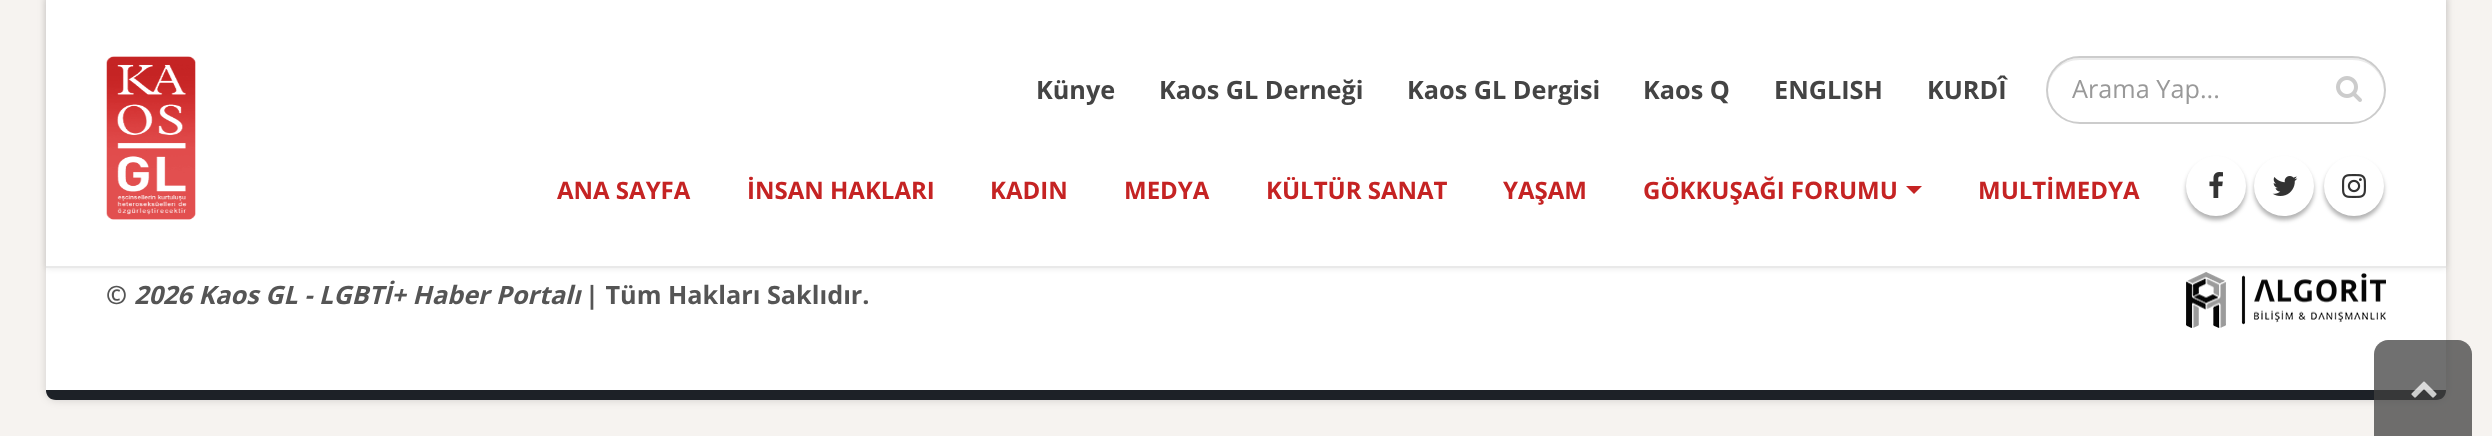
<svg xmlns="http://www.w3.org/2000/svg" width="2492" height="436" viewBox="0 0 2492 436">
  <style>
    .t1 { font: bold 25.25px Open Sans; fill: #444; }
    .t2 { font: 25.25px Open Sans; fill: #999; }
    .t3 { font: bold 24px Open Sans; fill: #c52323; }
    .t4 { font: bold 25.25px Open Sans; fill: #555; }
    .t5 { font: italic bold 25.25px Open Sans; fill: #555; }
  </style>
  <rect width="100%" height="100%" fill="#f6f3f0"/>
  <rect x="46" y="-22" width="2400" height="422" rx="10" fill="#00000026" filter="blur(4px)"/>
  <path d="M2436 400C2442 400 2446 396 2446 390H46C46 396 50 400 56 400Z" fill="#1d2127"/>
  <rect x="46" y="268" width="2400" height="122" fill="#fff"/>
  <image x="2186" y="272" width="200" height="56" href="images/6.png"/>
  <rect x="46" y="0" width="2400" height="268" fill="#0000001a" filter="blur(3px)"/>
  <rect x="46" y="0" width="2400" height="266" fill="#fff"/>
  <rect x="46" y="266" width="2400" height="2" fill="#e9e9e9"/>
  <image x="106" y="56" width="90" height="164" href="images/1.png"/>
  <text x="1036" y="99" class="t1">Künye</text>
  <text x="1159" y="99" class="t1">Kaos GL Derneği</text>
  <text x="1407" y="99" class="t1">Kaos GL Dergisi</text>
  <text x="1643" y="99" class="t1">Kaos Q</text>
  <text x="1774" y="99" class="t1">ENGLISH</text>
  <text x="1927" y="99" class="t1">KURDÎ</text>
  <path d="M2080 60H2352C2370 60 2383 73 2384 91V90C2384 72 2370 58 2352 58H2080C2062 58 2048 72 2048 90V91C2049 73 2062 60 2080 60Z" fill="#ececec"/>
  <rect x="2047" y="57" width="338" height="66" rx="33" fill="none" stroke="#ccc" stroke-width="2"/>
  <text x="2072" y="98" class="t2">Arama Yap...</text>
  <image x="2336" y="76" width="26" height="26" href="images/2.png"/>
  <text x="557" y="199" class="t3">ANA SAYFA</text>
  <text x="747" y="199" class="t3">İNSAN HAKLARI</text>
  <text x="990" y="199" class="t3">KADIN</text>
  <text x="1124" y="199" class="t3">MEDYA</text>
  <text x="1266" y="199" class="t3">KÜLTÜR SANAT</text>
  <text x="1503" y="199" class="t3">YAŞAM</text>
  <text x="1643" y="199" class="t3">GÖKKUŞAĞI FORUMU</text>
  <path d="M1906 186H1922L1914 194Z" fill="#c52323"/>
  <text x="1978" y="199" class="t3">MULTİMEDYA</text>
  <rect x="2186" y="160" width="60" height="60" rx="30" fill="#0000004d" filter="blur(2px)"/>
  <circle cx="2216" cy="186" r="30" fill="#fff"/>
  <image x="2209" y="172" width="14" height="26" href="images/3.png"/>
  <rect x="2254" y="160" width="60" height="60" rx="30" fill="#0000004d" filter="blur(2px)"/>
  <circle cx="2284" cy="186" r="30" fill="#fff"/>
  <image x="2272" y="176" width="26" height="20" href="images/4.png"/>
  <rect x="2324" y="160" width="60" height="60" rx="30" fill="#0000004d" filter="blur(2px)"/>
  <circle cx="2354" cy="186" r="30" fill="#fff"/>
  <image x="2342" y="174" width="24" height="24" href="images/5.png"/>
  <text x="106" y="304" class="t4">©</text>
  <text x="134" y="304" class="t5">2026 Kaos GL - LGBTİ+ Haber Portalı</text>
  <text x="585" y="304" class="t4">| Tüm Hakları Saklıdır.</text>
  <path d="M2388 340H2458C2465.5 340 2472 346.5 2472 354V436H2374V354C2374 346.5 2380.5 340 2388 340Z" fill="#404040bf"/>
  <image x="2411" y="381" width="26" height="17" href="images/7.png"/>
</svg>
